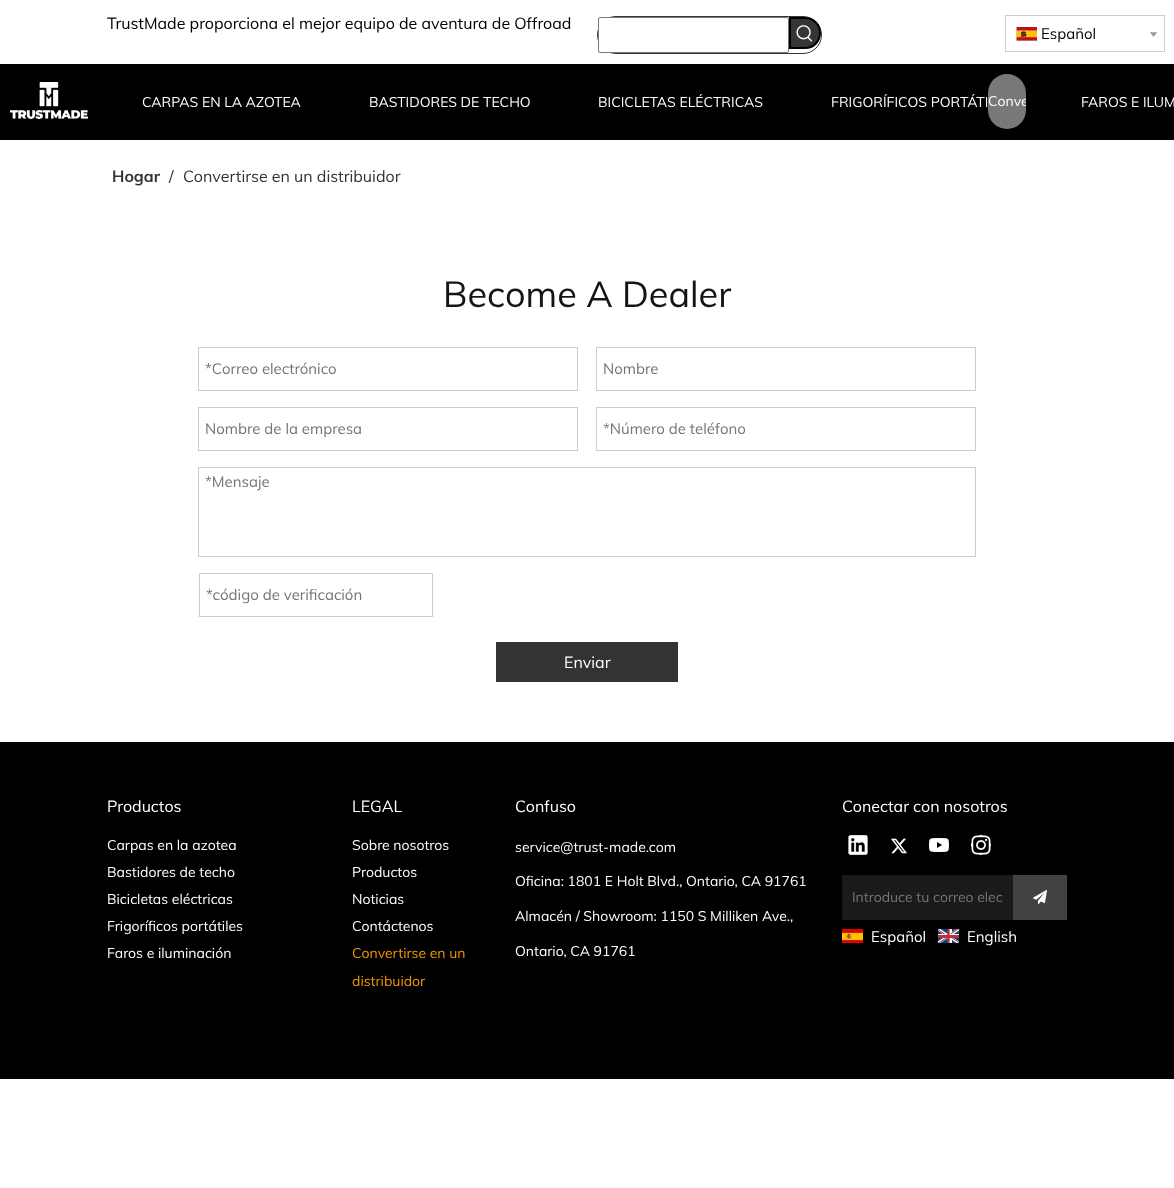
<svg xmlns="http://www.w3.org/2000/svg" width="1174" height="1188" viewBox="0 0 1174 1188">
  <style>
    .t1 { font: 16px Muli; fill: #000; }
    .t2 { font: 15px Muli; fill: #000; }
    .t3 { font: 14px Muli; fill: #fff; }
    .t4 { font: bold 16px Muli; fill: #333; }
    .t5 { font: 16px Muli; fill: #333; }
    .t6 { font: 36px Muli; fill: #151515; }
    .t7 { font: 15px Muli; fill: #757575; }
    .t8 { font: 16px Muli; fill: #fff; }
    .t9 { font: 14px Muli; fill: #f39801; }
    .t10 { font: 14px Muli; fill: #757575; }
    .t11 { font: 15px Muli; fill: #fff; }
  </style>
  <defs>
    <clipPath id="clip1"><rect x="988" y="74" width="38" height="55" rx="19"/></clipPath>
  </defs>
  <rect width="100%" height="100%" fill="#fff"/>
  <text x="107" y="29" class="t1">TrustMade proporciona el mejor equipo de aventura de Offroad</text>
  <rect x="597.5" y="16.5" width="224" height="37" rx="18.5" fill="none" stroke="#363636"/>
  <rect x="598.5" y="17.5" width="190" height="35" rx="1.5" fill="#fff" stroke="#767676"/>
  <path d="M790 18H805C813.5 18 820 24.5 820 33C820 41.5 813.5 48 805 48H790Z" fill="#363636" stroke="#000" stroke-width="2"/>
  <image x="796" y="25" width="17" height="17" href="images/1.png"/>
  <rect x="1005.5" y="15.5" width="159" height="36" fill="none" stroke="#ccc"/>
  <image x="1016" y="27" width="21" height="14" href="images/2.png"/>
  <text x="1041" y="39" class="t2">Español</text>
  <image x="1150" y="32" width="7" height="5" href="images/3.png"/>
  <rect x="0" y="64" width="1174" height="76" fill="#000"/>
  <image x="10" y="82" width="78" height="37" href="images/4.png"/>
  <text x="142" y="107" class="t3">CARPAS EN LA AZOTEA</text>
  <text x="369" y="107" class="t3">BASTIDORES DE TECHO</text>
  <text x="598" y="107" class="t3">BICICLETAS ELÉCTRICAS</text>
  <text x="831" y="107" class="t3">FRIGORÍFICOS PORTÁTI</text>
  <text x="1081" y="107" class="t3">FAROS E ILUM</text>
  <rect x="988" y="74" width="38" height="55" rx="19" fill="#787878"/>
  <g clip-path="url(#clip1)">
    <text x="988" y="106" class="t3">Conve</text>
  </g>
  <text x="112" y="182" class="t4">Hogar</text>
  <text x="169" y="182" class="t5">/</text>
  <text x="183" y="182" class="t5">Convertirse en un distribuidor</text>
  <text x="443" y="307" class="t6">Become A Dealer</text>
  <rect x="198.5" y="347.5" width="379" height="43" fill="none" stroke="#ccc"/>
  <text x="205" y="374" class="t7">*Correo electrónico</text>
  <rect x="596.5" y="347.5" width="379" height="43" fill="none" stroke="#ccc"/>
  <text x="603" y="374" class="t7">Nombre</text>
  <rect x="198.5" y="407.5" width="379" height="43" fill="none" stroke="#ccc"/>
  <text x="205" y="434" class="t7">Nombre de la empresa</text>
  <rect x="596.5" y="407.5" width="379" height="43" fill="none" stroke="#ccc"/>
  <text x="603" y="434" class="t7">*Número de teléfono</text>
  <rect x="198.5" y="467.5" width="777" height="89" fill="none" stroke="#ccc"/>
  <text x="205" y="487" class="t7">*Mensaje</text>
  <rect x="199.5" y="573.5" width="233" height="43" fill="none" stroke="#ccc"/>
  <text x="206" y="600" class="t7">*código de verificación</text>
  <rect x="496" y="642" width="182" height="40" fill="#333"/>
  <text x="564" y="668" class="t8">Enviar</text>
  <rect x="0" y="742" width="1174" height="337" fill="#000"/>
  <text x="107" y="812" class="t8">Productos</text>
  <text x="107" y="850" class="t3">Carpas en la azotea</text>
  <text x="107" y="877" class="t3">Bastidores de techo</text>
  <text x="107" y="904" class="t3">Bicicletas eléctricas</text>
  <text x="107" y="931" class="t3">Frigoríficos portátiles</text>
  <text x="107" y="958" class="t3">Faros e iluminación</text>
  <text x="352" y="812" class="t8">LEGAL</text>
  <text x="352" y="850" class="t3">Sobre nosotros</text>
  <text x="352" y="877" class="t3">Productos</text>
  <text x="352" y="904" class="t3">Noticias</text>
  <text x="352" y="931" class="t3">Contáctenos</text>
  <text x="352" y="958" class="t9">Convertirse en un</text>
  <text x="352" y="986" class="t9">distribuidor</text>
  <text x="515" y="812" class="t8">Confuso</text>
  <text x="515" y="852" class="t3">service@trust-made.com</text>
  <text x="515" y="886" class="t3">Oficina: 1801 E Holt Blvd., Ontario, CA 91761</text>
  <text x="515" y="921" class="t3">Almacén / Showroom: 1150 S Milliken Ave.,</text>
  <text x="515" y="956" class="t3">Ontario, CA 91761</text>
  <text x="842" y="812" class="t8">Conectar con nosotros</text>
  <image x="848" y="835" width="20" height="20" href="images/5.png"/>
  <image x="891" y="838" width="16" height="16" href="images/6.png"/>
  <image x="929" y="838" width="20" height="14" href="images/7.png"/>
  <image x="971" y="835" width="20" height="20" href="images/8.png"/>
  <rect x="842" y="875" width="171" height="45" fill="#1a1a1a"/>
  <text x="852" y="902" class="t10">Introduce tu correo elec</text>
  <rect x="1013" y="875" width="54" height="45" fill="#424242"/>
  <image x="1033" y="890" width="14" height="14" href="images/9.png"/>
  <image x="842" y="929" width="21" height="14" href="images/10.png"/>
  <text x="871" y="942" class="t11">Español</text>
  <image x="938" y="929" width="21" height="14" href="images/11.png"/>
  <text x="967" y="942" class="t11">English</text>
</svg>
